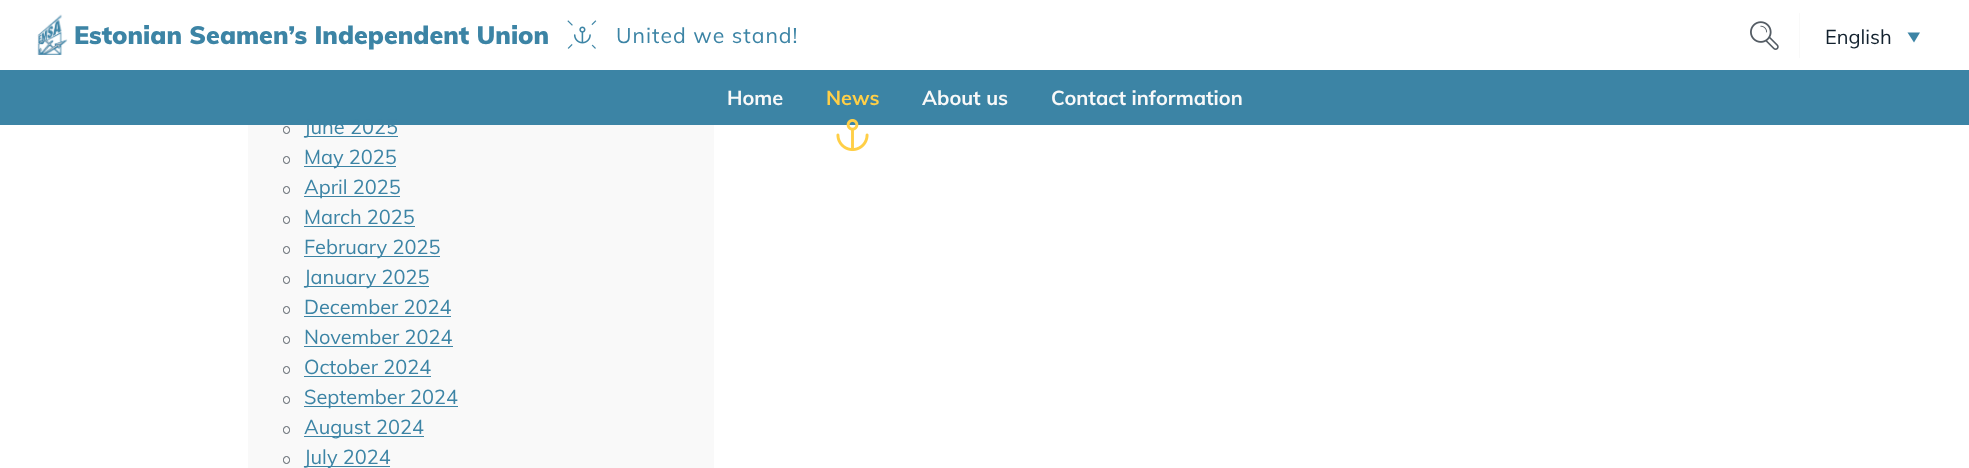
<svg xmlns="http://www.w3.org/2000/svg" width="1969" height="468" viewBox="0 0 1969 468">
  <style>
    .t1 { font: 900 25px Muli; fill: #3c84a5; }
    .t2 { font: 21.25px Muli; letter-spacing: 1px; fill: #3c84a5; }
    .t3 { font: 20px Muli; fill: #12212e; }
    .t4 { font: bold 20px Muli; fill: #f9f9f9; }
    .t5 { font: bold 20px Muli; fill: #ffcf47; }
    .t6 { font: 20px Muli; fill: #3c84a5; }
  </style>
  <rect width="100%" height="100%" fill="#fff"/>
  <image x="37" y="14" width="31" height="41" href="images/1.png"/>
  <text x="74" y="44" class="t1">Estonian Seamen’s Independent Union</text>
  <image x="567" y="20" width="30" height="29" href="images/2.png"/>
  <text x="616" y="43" class="t2">United we stand!</text>
  <image x="1750" y="21" width="29" height="29" href="images/3.png"/>
  <rect x="1799" y="13" width="1" height="45" fill="#f9f9f9"/>
  <text x="1825" y="44" class="t3">English</text>
  <path d="M1907.5 32.5H1920L1914 42.5Z" fill="#3c84a5"/>
  <rect x="0" y="70" width="1969" height="55" fill="#3c84a5"/>
  <text x="727" y="105" class="t4">Home</text>
  <text x="826" y="105" class="t5">News</text>
  <image x="836" y="119" width="33" height="33" href="images/4.png"/>
  <text x="922" y="105" class="t4">About us</text>
  <text x="1051" y="105" class="t4">Contact information</text>
  <rect x="248" y="125" width="466" height="343" fill="#f9f9f9"/>
  <rect x="283.5" y="126.5" width="6" height="7" rx="3" fill="none" stroke="#545c64"/>
  <rect x="304" y="136" width="94" height="1" fill="#3c84a5"/>
  <text x="304" y="134" class="t6">June 2025</text>
  <rect x="283.5" y="156.5" width="6" height="7" rx="3" fill="none" stroke="#545c64"/>
  <rect x="304" y="166" width="92" height="1" fill="#3c84a5"/>
  <text x="304" y="164" class="t6">May 2025</text>
  <rect x="283.5" y="186.5" width="6" height="7" rx="3" fill="none" stroke="#545c64"/>
  <rect x="304" y="196" width="96" height="1" fill="#3c84a5"/>
  <text x="304" y="194" class="t6">April 2025</text>
  <rect x="283.5" y="216.5" width="6" height="7" rx="3" fill="none" stroke="#545c64"/>
  <text x="304" y="224" class="t6">March 2025</text>
  <rect x="304" y="226" width="111" height="1" fill="#3c84a5"/>
  <rect x="283.5" y="246.5" width="6" height="7" rx="3" fill="none" stroke="#545c64"/>
  <rect x="304" y="256" width="136" height="1" fill="#3c84a5"/>
  <text x="304" y="254" class="t6">February 2025</text>
  <rect x="283.5" y="276.5" width="6" height="7" rx="3" fill="none" stroke="#545c64"/>
  <rect x="304" y="286" width="125" height="1" fill="#3c84a5"/>
  <text x="304" y="284" class="t6">January 2025</text>
  <rect x="283.5" y="306.5" width="6" height="7" rx="3" fill="none" stroke="#545c64"/>
  <text x="304" y="314" class="t6">December 2024</text>
  <rect x="304" y="316" width="147" height="1" fill="#3c84a5"/>
  <rect x="283.5" y="336.5" width="6" height="7" rx="3" fill="none" stroke="#545c64"/>
  <text x="304" y="344" class="t6">November 2024</text>
  <rect x="304" y="346" width="149" height="1" fill="#3c84a5"/>
  <rect x="283.5" y="366.5" width="6" height="7" rx="3" fill="none" stroke="#545c64"/>
  <text x="304" y="374" class="t6">October 2024</text>
  <rect x="304" y="376" width="127" height="1" fill="#3c84a5"/>
  <rect x="283.5" y="396.5" width="6" height="7" rx="3" fill="none" stroke="#545c64"/>
  <rect x="304" y="406" width="154" height="1" fill="#3c84a5"/>
  <text x="304" y="404" class="t6">September 2024</text>
  <rect x="283.5" y="426.5" width="6" height="7" rx="3" fill="none" stroke="#545c64"/>
  <rect x="304" y="436" width="120" height="1" fill="#3c84a5"/>
  <text x="304" y="434" class="t6">August 2024</text>
  <rect x="283.5" y="456.5" width="6" height="7" rx="3" fill="none" stroke="#545c64"/>
  <rect x="304" y="466" width="86" height="1" fill="#3c84a5"/>
  <text x="304" y="464" class="t6">July 2024</text>
</svg>
